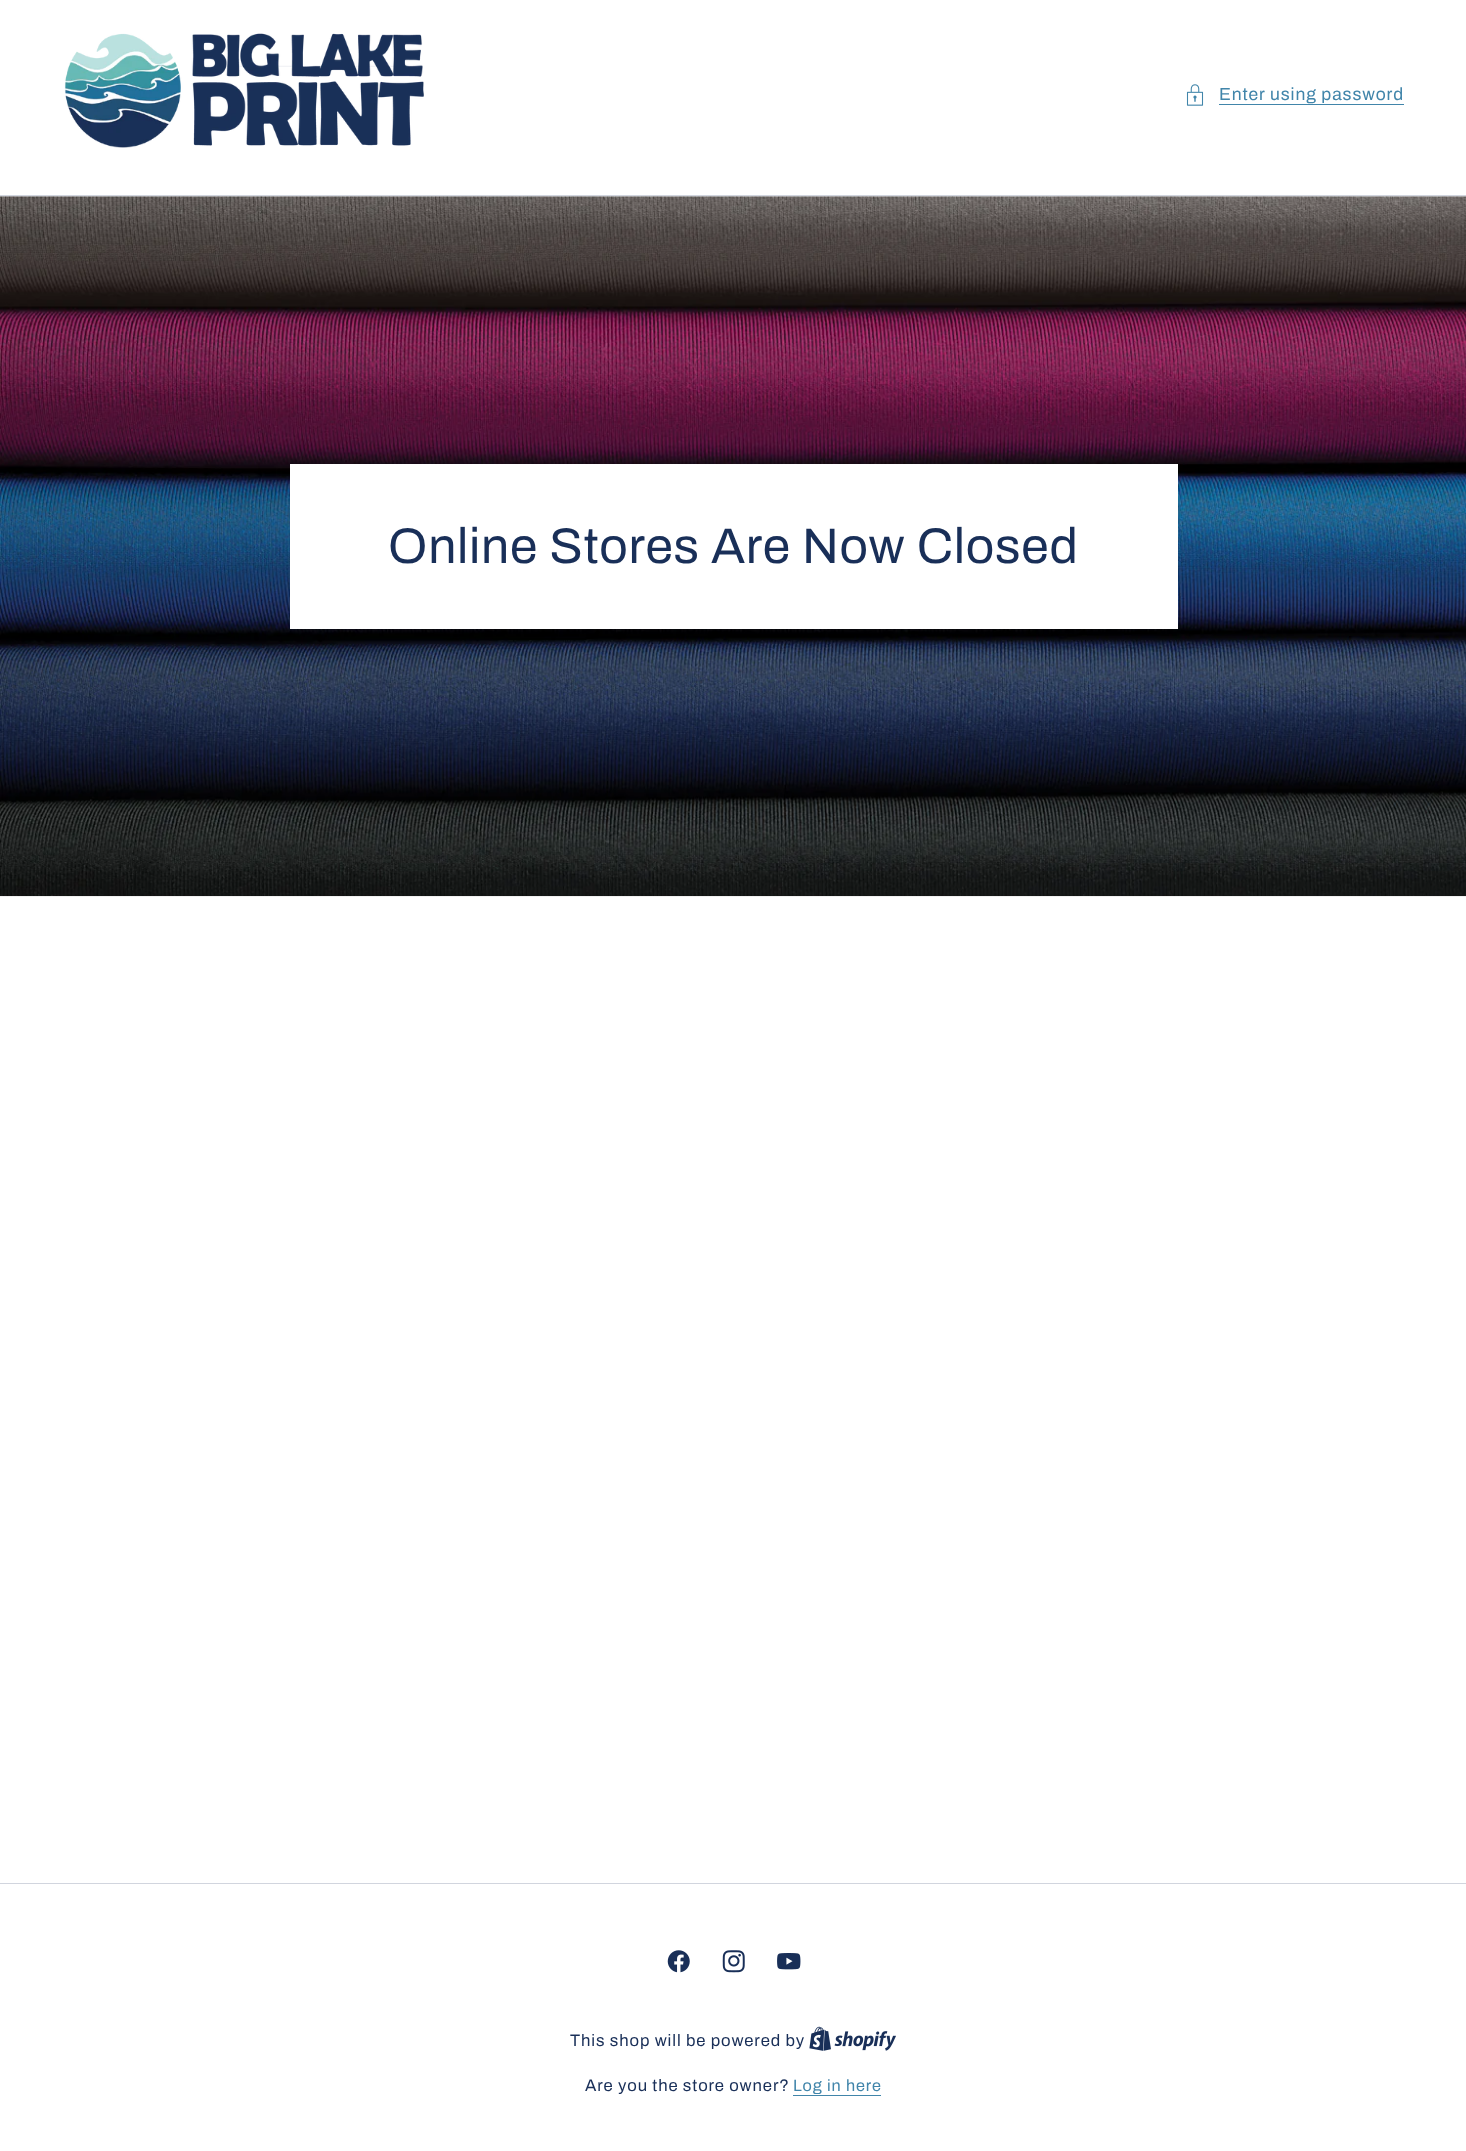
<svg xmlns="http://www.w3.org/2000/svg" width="1466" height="2151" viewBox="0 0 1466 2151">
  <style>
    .t1 { font: 17.5px Archivo; letter-spacing: 0.9px; fill: #4185aa; }
    .t2 { font: 50px Archivo; letter-spacing: 0.75px; fill: #192f58; }
    .t3 { font: 16.7px Archivo; letter-spacing: 0.9px; fill: #192f58; }
    .t4 { font: 16.25px Archivo; letter-spacing: 0.9px; fill: #4185aa; }
  </style>
  <rect width="100%" height="100%" fill="#fff"/>
  <image x="64" y="33" width="360" height="115" href="images/1.png"/>
  <image x="1186" y="84" width="18" height="22" href="images/2.png"/>
  <text x="1219" y="100" class="t1">Enter using password</text>
  <rect x="1219" y="104" width="185" height="1" fill="#4185aa"/>
  <rect x="0" y="195" width="1466" height="1" fill="#d1d5de"/>
  <rect x="0" y="196" width="1466" height="1" fill="#e9ebef"/>
  <image x="0" y="196" width="1466" height="701" href="images/3.png"/>
  <rect x="290" y="464" width="888" height="165" fill="#fff"/>
  <text x="388" y="563" class="t2">Online Stores Are Now Closed</text>
  <rect x="0" y="1883" width="1466" height="1" fill="#d1d5de"/>
  <image x="667" y="1950" width="23" height="23" href="images/4.png"/>
  <image x="722" y="1950" width="23" height="23" href="images/5.png"/>
  <image x="777" y="1953" width="24" height="17" href="images/6.png"/>
  <text x="570" y="2046" class="t3">This shop will be powered by</text>
  <image x="809" y="2026" width="87" height="25" href="images/7.png"/>
  <text x="585" y="2091" class="t3">Are you the store owner?</text>
  <text x="793" y="2091" class="t4">Log in here</text>
  <rect x="793" y="2095" width="88" height="1" fill="#4185aa"/>
</svg>
